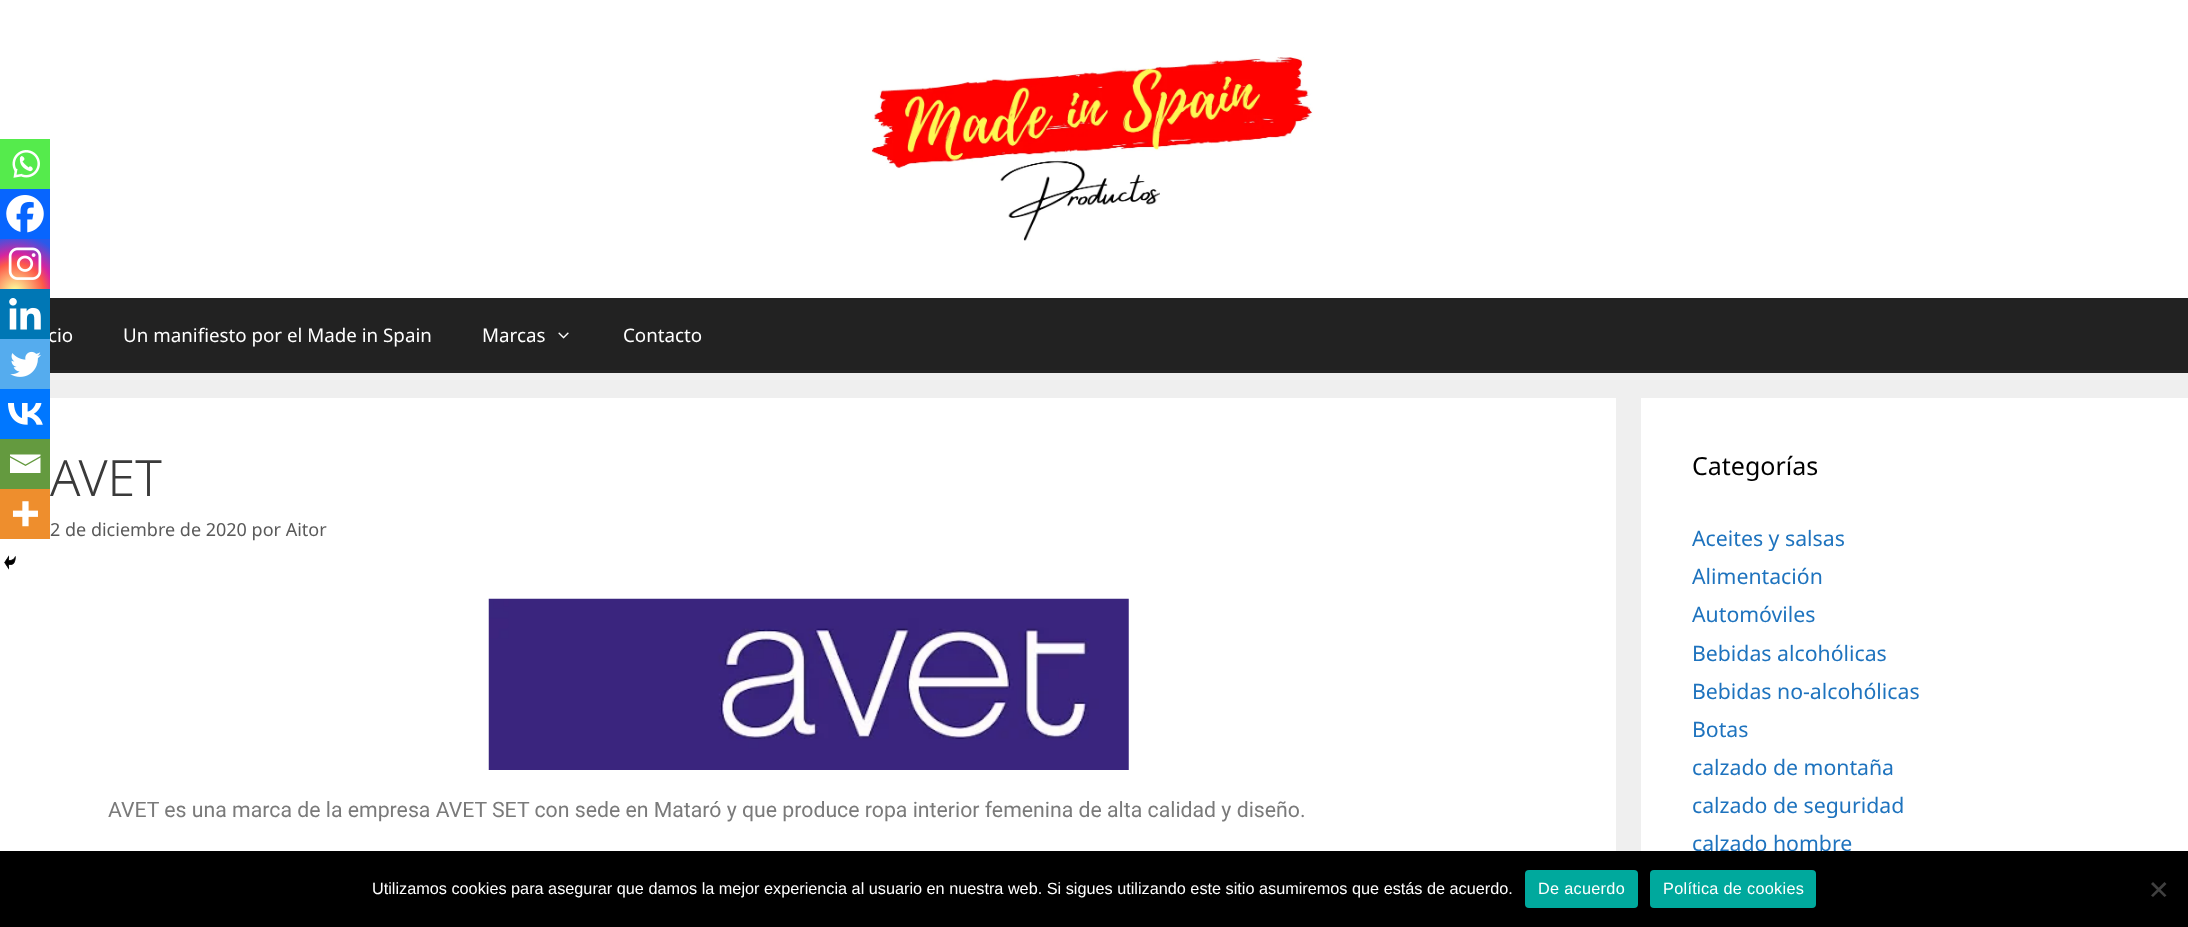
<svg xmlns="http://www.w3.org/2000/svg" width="2188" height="927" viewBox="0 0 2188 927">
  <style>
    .t1 { font: 18.75px Noto Sans; fill: #fff; }
    .t2 { font: 300 50px Noto Sans; fill: #3a3a3a; }
    .t3 { font: 18px Noto Sans; fill: #595959; }
    .t4 { font: 21.25px Roboto; fill: #7a7a7a; }
    .t5 { font: 25px Noto Sans; fill: #000; }
    .t6 { font: 21.25px Noto Sans; fill: #1e73be; }
    .t7 { font: 16.25px Liberation Sans; fill: #fff; }
    .t8 { font: 16.25px Liberation Sans; letter-spacing: 0.3px; fill: #fff; }
  </style>
  <defs>
    <radialGradient id="g1" gradientUnits="userSpaceOnUse" cx="15" cy="292" r="64"><stop offset="0" stop-color="#fdf497"/><stop offset="0.05" stop-color="#fdf497"/><stop offset="0.45" stop-color="#fd5949"/><stop offset="0.6" stop-color="#d6249f"/><stop offset="0.9" stop-color="#285aeb"/></radialGradient>
  </defs>
  <rect width="100%" height="100%" fill="#efefef"/>
  <rect x="0" y="0" width="2188" height="298" fill="#fff"/>
  <image x="871" y="57" width="442" height="184" href="images/1.png"/>
  <rect x="50" y="298" width="2138" height="75" fill="#222"/>
  <text x="48" y="342" class="t1">cio</text>
  <text x="123" y="342" class="t1">Un manifiesto por el Made in Spain</text>
  <text x="482" y="342" class="t1">Marcas</text>
  <image x="558" y="332" width="11" height="7" href="images/2.png"/>
  <text x="623" y="342" class="t1">Contacto</text>
  <rect x="0" y="398" width="1616" height="453" fill="#fff"/>
  <text x="50" y="496" class="t2">AVET</text>
  <text x="50" y="536" class="t3">2 de diciembre de 2020 por Aitor</text>
  <rect x="0" y="139" width="50" height="50" fill="#55eb4c"/>
  <image x="12" y="150" width="28" height="28" href="images/3.png"/>
  <rect x="0" y="189" width="50" height="50" fill="#0765fe"/>
  <image x="6" y="195" width="38" height="38" href="images/4.png"/>
  <rect x="0" y="239" width="50" height="50" fill="url(#g1)"/>
  <image x="8" y="247" width="34" height="33" href="images/5.png"/>
  <rect x="0" y="289" width="50" height="50" fill="#0077b5"/>
  <image x="9" y="298" width="32" height="32" href="images/6.png"/>
  <rect x="0" y="339" width="50" height="50" fill="#55acee"/>
  <image x="10" y="351" width="31" height="26" href="images/7.png"/>
  <rect x="0" y="389" width="50" height="50" fill="#07f"/>
  <image x="8" y="403" width="35" height="22" href="images/8.png"/>
  <rect x="0" y="439" width="50" height="50" fill="#649a3f"/>
  <path d="M8.5 454.5H40.5V456L25.5 464.5L10 456V454.5M10 457.5L25.5 466L40.5 457.5V473H10V457.5" fill="#fff"/>
  <rect x="0" y="489" width="50" height="50" fill="#ee8e2d"/>
  <image x="12" y="501" width="26" height="26" href="images/9.png"/>
  <image x="4" y="555" width="12" height="15" href="images/10.png"/>
  <image x="488" y="598" width="641" height="172" href="images/11.png"/>
  <text x="108" y="817" class="t4">AVET es una marca de la empresa AVET SET con sede en Mataró y que produce ropa interior femenina de alta calidad y diseño.</text>
  <rect x="1641" y="398" width="547" height="453" fill="#fff"/>
  <text x="1692" y="475" class="t5">Categorías</text>
  <text x="1692" y="546" class="t6">Aceites y salsas</text>
  <text x="1692" y="584" class="t6">Alimentación</text>
  <text x="1692" y="622" class="t6">Automóviles</text>
  <text x="1692" y="661" class="t6">Bebidas alcohólicas</text>
  <text x="1692" y="699" class="t6">Bebidas no-alcohólicas</text>
  <text x="1692" y="737" class="t6">Botas</text>
  <text x="1692" y="775" class="t6">calzado de montaña</text>
  <text x="1692" y="813" class="t6">calzado de seguridad</text>
  <text x="1692" y="851" class="t6">calzado hombre</text>
  <rect x="0" y="851" width="2188" height="76" fill="#000"/>
  <text x="372" y="894" class="t7">Utilizamos cookies para asegurar que damos la mejor experiencia al usuario en nuestra web. Si sigues utilizando este sitio asumiremos que estás de acuerdo.</text>
  <rect x="1525" y="870" width="113" height="38" rx="4" fill="#00a99d"/>
  <text x="1538" y="894" class="t8">De acuerdo</text>
  <rect x="1650" y="870" width="166" height="38" rx="4" fill="#00a99d"/>
  <text x="1663" y="894" class="t8">Política de cookies</text>
  <path d="M2164.5 882L2166.5 884L2153 897L2151 895.5Z" fill="#404040"/>
  <path d="M2151 884L2153 882L2166.5 895.5L2164.5 897Z" fill="#404040"/>
</svg>
